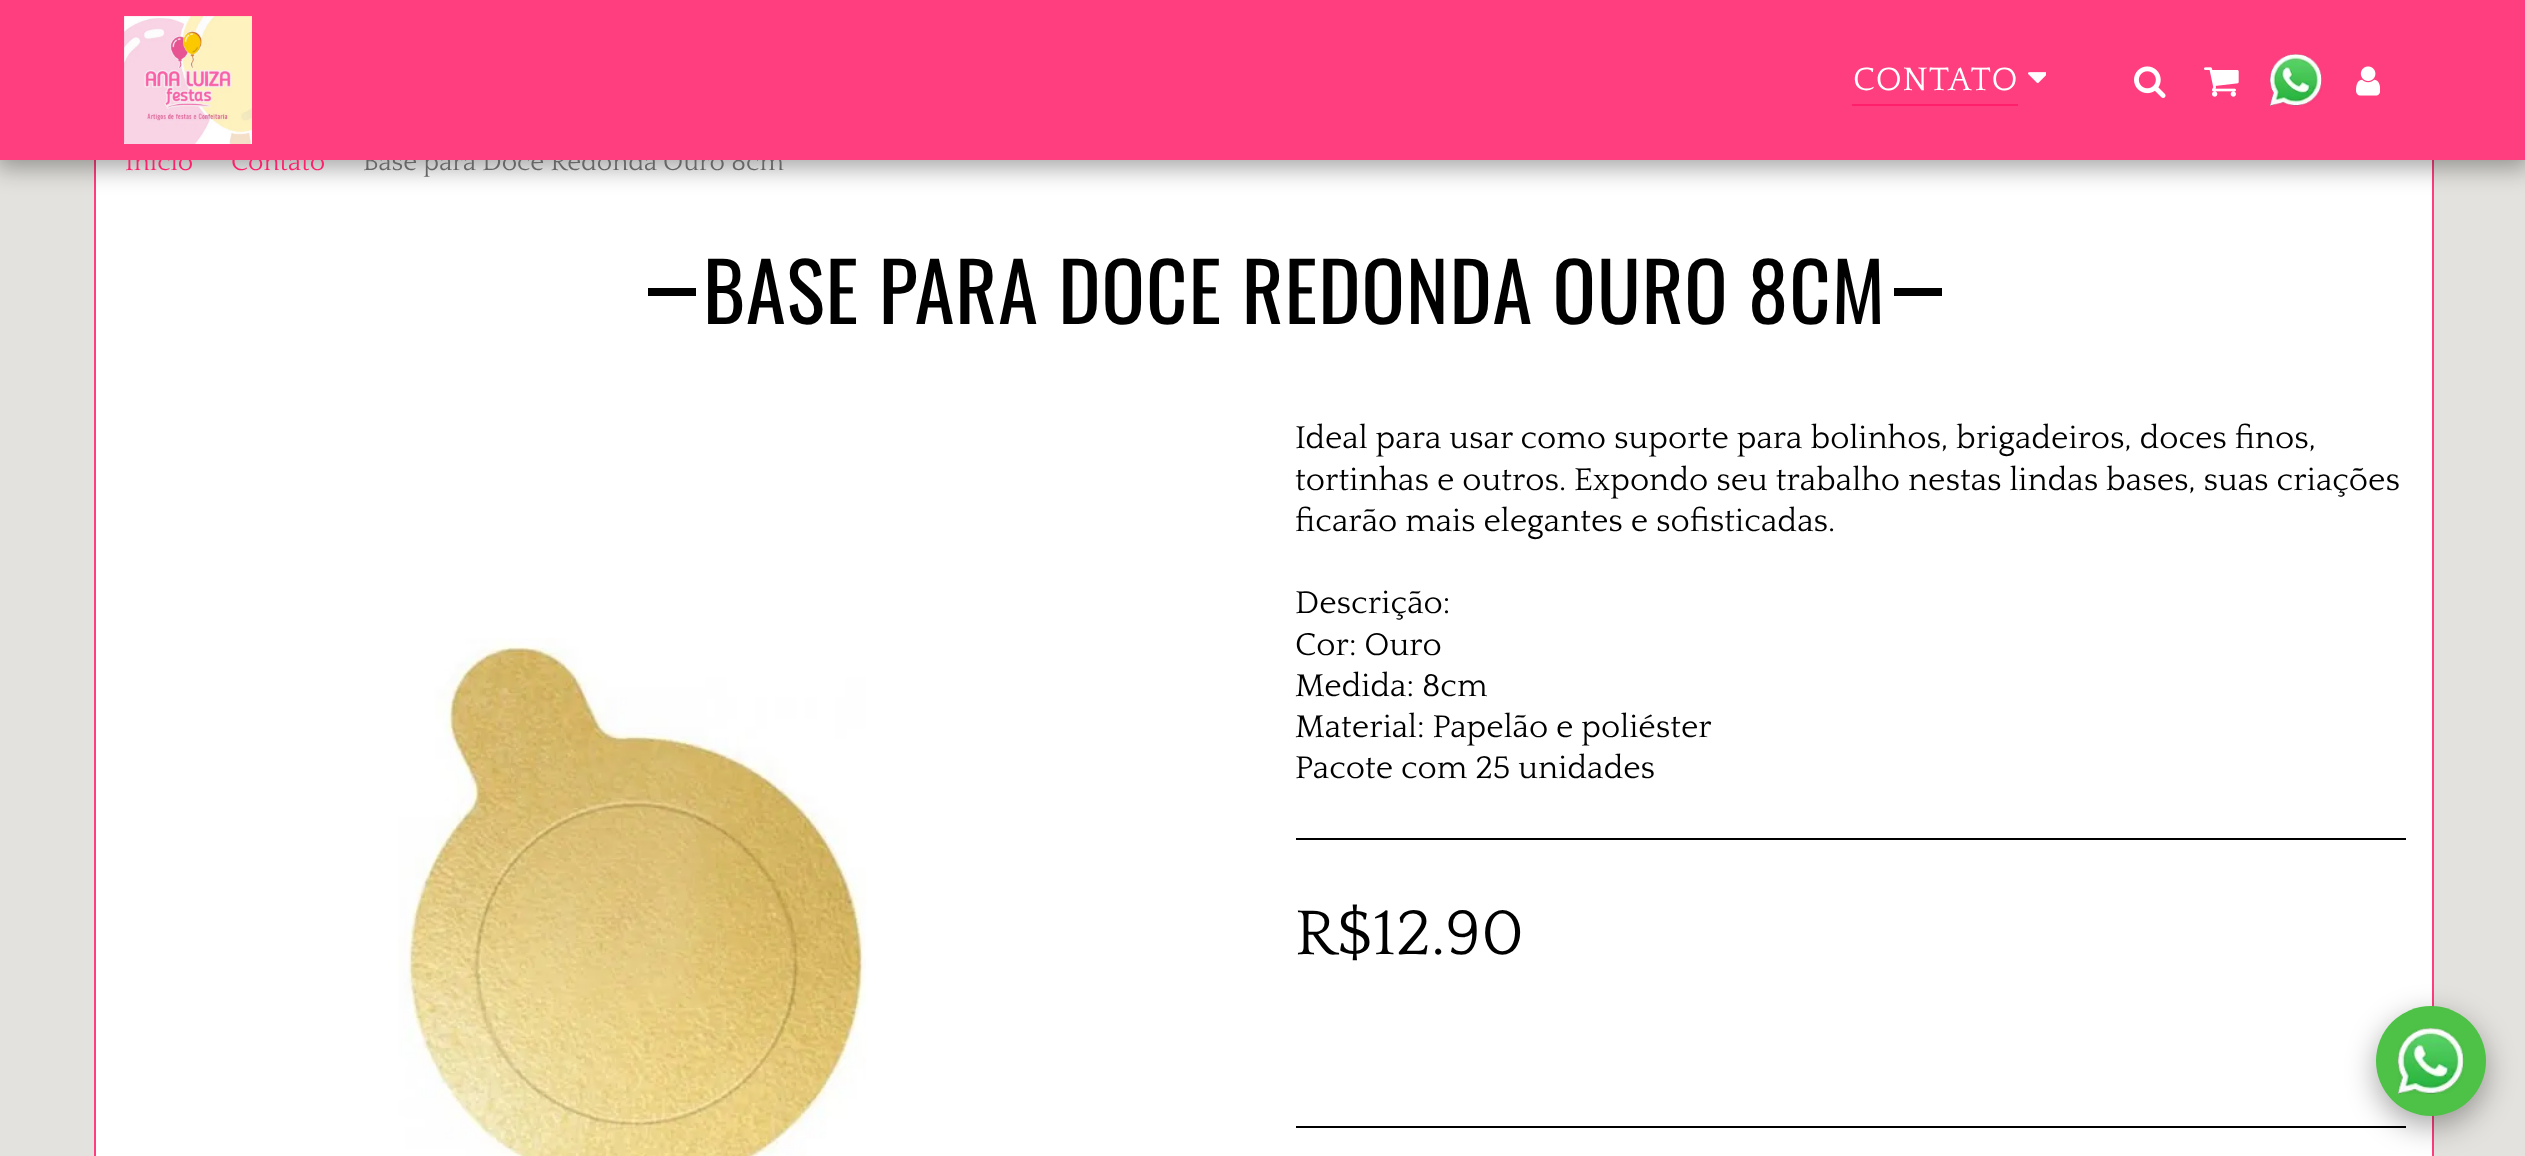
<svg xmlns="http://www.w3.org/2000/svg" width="2525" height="1156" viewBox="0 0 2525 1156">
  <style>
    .t1 { font: 26.4px Quattrocento; fill: #ff1f6a; }
    .t2 { font: 26.4px Quattrocento; fill: #666; }
    .t3 { font: 34px Quattrocento; letter-spacing: 1px; fill: #fff; }
    .t4 { font: 80.5px Oswald; letter-spacing: 1px; fill: #000; }
    .t5 { font: 33px Quattrocento; fill: #000; }
    .t6 { font: 66px Quattrocento; fill: #000; }
  </style>
  <rect width="100%" height="100%" fill="#e3e2de"/>
  <rect x="95" y="-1" width="2338" height="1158" fill="none" stroke="#ff3e7f" stroke-width="2"/>
  <rect x="96" y="160" width="2336" height="996" fill="#fff"/>
  <rect x="-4" y="0" width="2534" height="168" fill="#00000059" filter="blur(12px)"/>
  <text x="125" y="170" class="t1">Início</text>
  <text x="231" y="170" class="t1">Contato</text>
  <text x="363" y="170" class="t2">Base para Doce Redonda</text>
  <text x="663" y="170" class="t2">Ouro 8cm</text>
  <rect x="0" y="0" width="2525" height="160" fill="#ff3e7f"/>
  <image x="124" y="16" width="128" height="128" href="images/1.png"/>
  <text x="1853" y="90" class="t3">CONTATO</text>
  <rect x="1852" y="104" width="166" height="2" fill="#ff1f6a"/>
  <image x="2028" y="72" width="18" height="11" href="images/2.png"/>
  <image x="2134" y="66" width="32" height="32" href="images/3.png"/>
  <image x="2204" y="67" width="35" height="30" href="images/4.png"/>
  <image x="2270" y="54" width="52" height="52" href="images/5.png"/>
  <image x="2356" y="66" width="24" height="30" href="images/6.png"/>
  <rect x="648" y="288" width="48" height="8" fill="#000"/>
  <text x="703" y="324" class="t4">BASE PARA DOCE REDONDA OURO 8CM</text>
  <rect x="1894" y="288" width="48" height="8" fill="#000"/>
  <image x="398" y="638" width="468" height="518" href="images/7.png"/>
  <text x="1295" y="448" class="t5">Ideal para usar como suporte para bolinhos, brigadeiros, doces finos,</text>
  <text x="1295" y="490" class="t5">tortinhas e outros. Expondo seu trabalho nestas lindas bases, suas criações</text>
  <text x="1295" y="531" class="t5">ficarão mais elegantes e sofisticadas.</text>
  <text x="1295" y="613" class="t5">Descrição:</text>
  <text x="1295" y="655" class="t5">Cor: Ouro</text>
  <text x="1295" y="696" class="t5">Medida: 8cm</text>
  <text x="1295" y="737" class="t5">Material: Papelão e poliéster</text>
  <text x="1295" y="778" class="t5">Pacote com 25 unidades</text>
  <rect x="1296" y="838" width="1110" height="2" fill="#000"/>
  <text x="1295" y="954" class="t6">R$12.90</text>
  <rect x="1296" y="1126" width="1110" height="2" fill="#000"/>
  <rect x="2376" y="1016" width="110" height="110" rx="55" fill="#00000059" filter="blur(15px)"/>
  <circle cx="2431" cy="1061" r="55" fill="#4dc247"/>
  <image x="2398" y="1028" width="66" height="66" href="images/8.png"/>
</svg>
